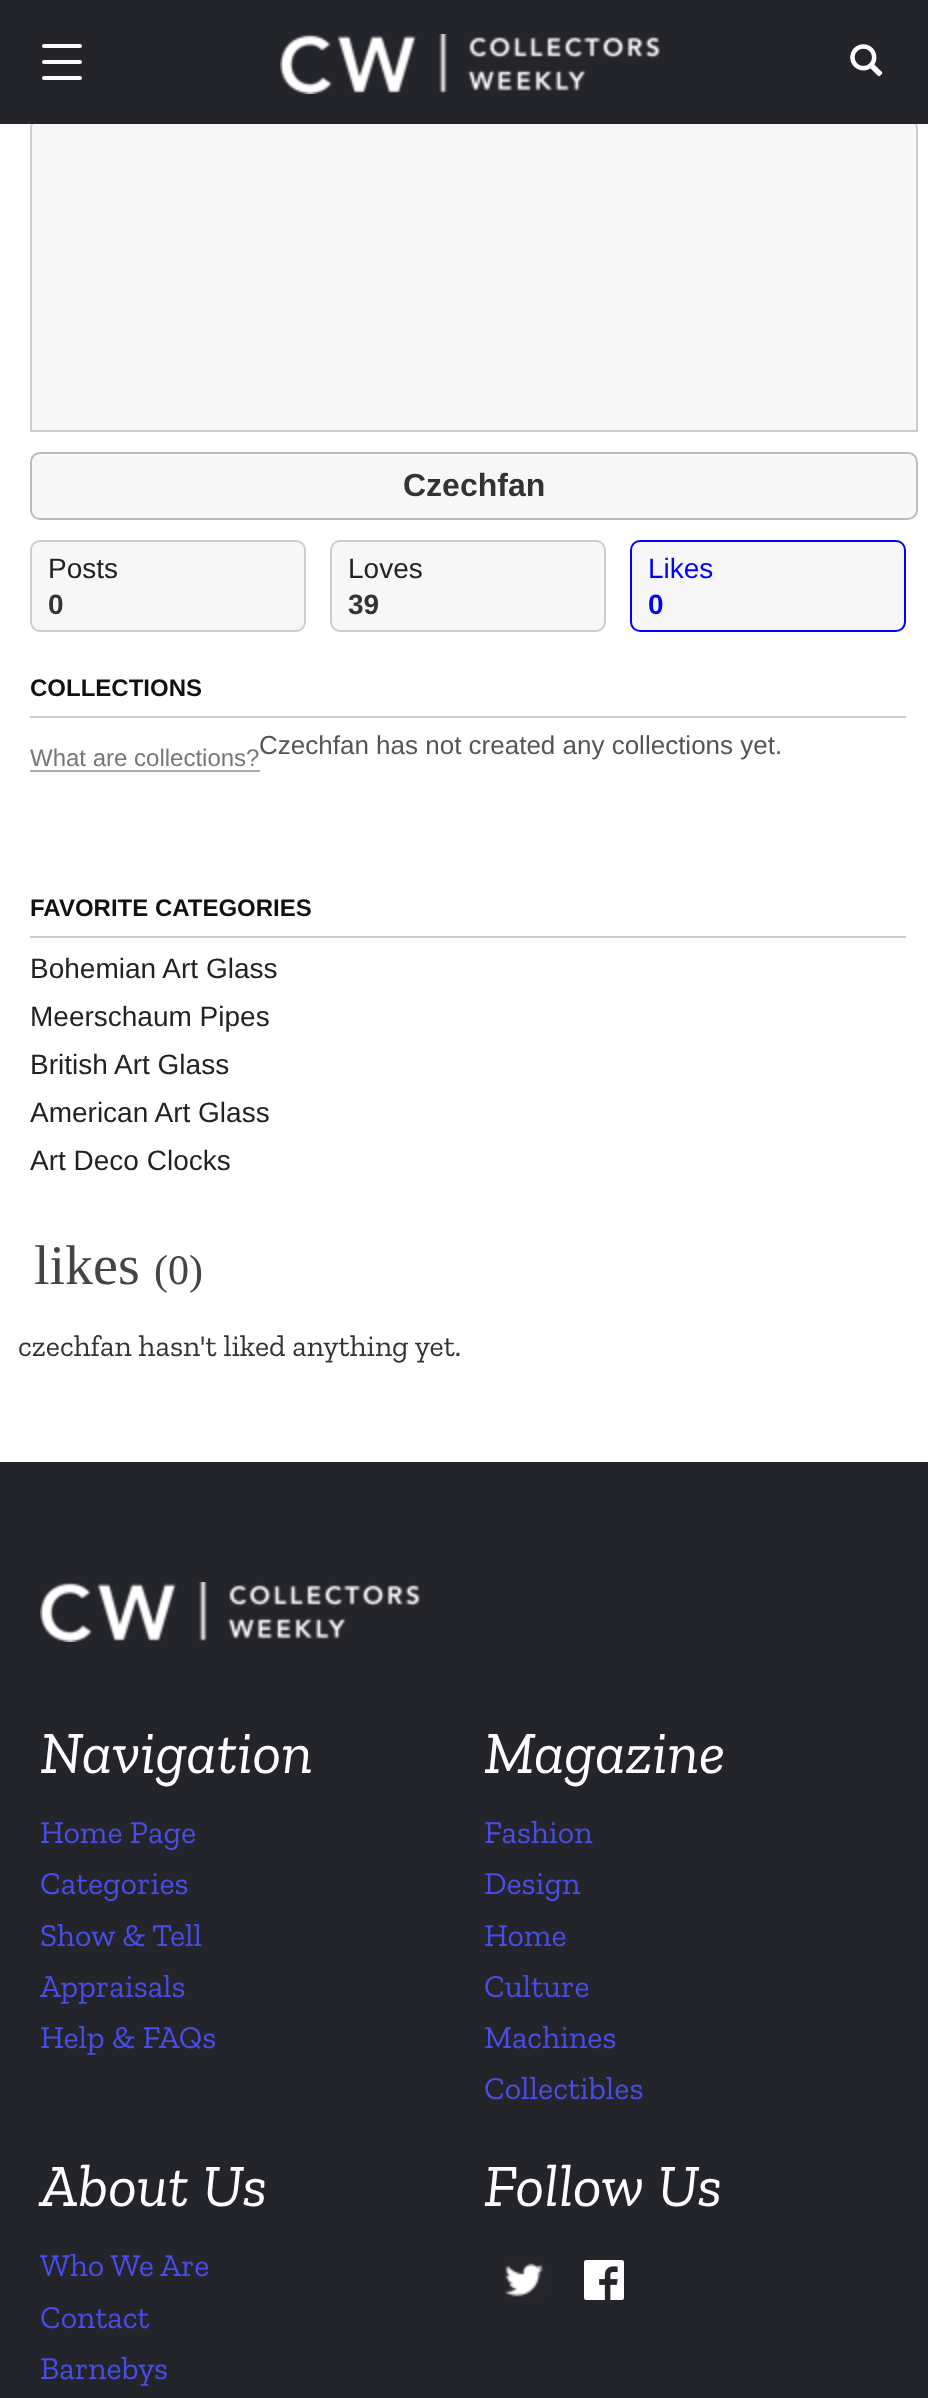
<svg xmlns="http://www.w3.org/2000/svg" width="928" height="2398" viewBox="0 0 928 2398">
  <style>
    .t1 { font: bold 32px Liberation Sans; fill: #333; }
    .t2 { font: 28px Liberation Sans; fill: #222; }
    .t3 { font: bold 28px Liberation Sans; fill: #333; }
    .t4 { font: 28px Liberation Sans; fill: #00f; }
    .t5 { font: bold 28px Liberation Sans; fill: #00f; }
    .t6 { font: bold 24px Liberation Sans; fill: #111; }
    .t7 { font: 24px Liberation Sans; fill: #777; }
    .t8 { font: 26px Liberation Sans; fill: #555; }
    .t9 { font: 56px Liberation Serif; fill: #444; }
    .t10 { font: 42px Liberation Serif; fill: #444; }
    .t11 { font: 30px Zilla Slab; fill: #333; }
    .t12 { font: italic 60px Zilla Slab; fill: #fff; }
    .t13 { font: 32px Zilla Slab; fill: #484ee9; }
  </style>
  <rect width="100%" height="100%" fill="#fff"/>
  <path d="M40 119H908C913 119 917 123 917 128V431H31V128C31 123 35 119 40 119Z" fill="#f7f7f7" stroke="#ccc" stroke-width="2"/>
  <rect x="0" y="0" width="928" height="124" fill="#24252b"/>
  <rect x="42" y="44" width="40" height="4" rx="2" fill="#fff"/>
  <rect x="42" y="60" width="40" height="4" rx="2" fill="#fff"/>
  <rect x="42" y="76" width="40" height="4" rx="2" fill="#fff"/>
  <image x="280" y="34" width="380" height="60" href="images/1.png"/>
  <image x="850" y="44" width="33" height="33" href="images/2.png"/>
  <rect x="31" y="453" width="886" height="66" rx="9" fill="#f7f7f7" stroke="#bbb" stroke-width="2"/>
  <text x="403" y="496" class="t1">Czechfan</text>
  <rect x="31" y="541" width="274" height="90" rx="9" fill="#f7f7f7" stroke="#ccc" stroke-width="2"/>
  <text x="48" y="578" class="t2">Posts</text>
  <text x="48" y="614" class="t3">0</text>
  <rect x="331" y="541" width="274" height="90" rx="9" fill="#f7f7f7" stroke="#ccc" stroke-width="2"/>
  <text x="348" y="578" class="t2">Loves</text>
  <text x="348" y="614" class="t3">39</text>
  <rect x="631" y="541" width="274" height="90" rx="9" fill="#f7f7f7" stroke="#00f" stroke-width="2"/>
  <text x="648" y="578" class="t4">Likes</text>
  <text x="648" y="614" class="t5">0</text>
  <rect x="30" y="716" width="876" height="2" fill="#ccc"/>
  <text x="30" y="696" class="t6">COLLECTIONS</text>
  <rect x="30" y="770" width="230" height="2" fill="#aaa"/>
  <text x="30" y="766" class="t7">What are collections?</text>
  <text x="259" y="754" class="t8">Czechfan has not created any collections yet.</text>
  <rect x="30" y="936" width="876" height="2" fill="#ccc"/>
  <text x="30" y="916" class="t6">FAVORITE CATEGORIES</text>
  <text x="30" y="978" class="t2">Bohemian Art Glass</text>
  <text x="30" y="1026" class="t2">Meerschaum Pipes</text>
  <text x="30" y="1074" class="t2">British Art Glass</text>
  <text x="30" y="1122" class="t2">American Art Glass</text>
  <text x="30" y="1170" class="t2">Art Deco Clocks</text>
  <text x="34" y="1284" class="t9">likes</text>
  <text x="154" y="1284" class="t10">(0)</text>
  <text x="18" y="1356" class="t11">czechfan hasn't liked anything yet.</text>
  <rect x="0" y="1462" width="928" height="936" fill="#24252b"/>
  <image x="40" y="1582" width="380" height="60" href="images/1.png"/>
  <text x="40" y="1773" class="t12">Navigation</text>
  <text x="40" y="1843" class="t13">Home Page</text>
  <text x="40" y="1894" class="t13">Categories</text>
  <text x="40" y="1946" class="t13">Show &amp; Tell</text>
  <text x="40" y="1997" class="t13">Appraisals</text>
  <text x="40" y="2048" class="t13">Help &amp; FAQs</text>
  <text x="484" y="1773" class="t12">Magazine</text>
  <text x="484" y="1843" class="t13">Fashion</text>
  <text x="484" y="1894" class="t13">Design</text>
  <text x="484" y="1946" class="t13">Home</text>
  <text x="484" y="1997" class="t13">Culture</text>
  <text x="484" y="2048" class="t13">Machines</text>
  <text x="484" y="2099" class="t13">Collectibles</text>
  <text x="40" y="2206" class="t12">About Us</text>
  <text x="40" y="2276" class="t13">Who We Are</text>
  <text x="40" y="2328" class="t13">Contact</text>
  <text x="40" y="2379" class="t13">Barnebys</text>
  <text x="484" y="2206" class="t12">Follow Us</text>
  <image x="504" y="2263" width="41" height="34" href="images/3.png"/>
  <image x="584" y="2260" width="40" height="40" href="images/4.png"/>
</svg>
